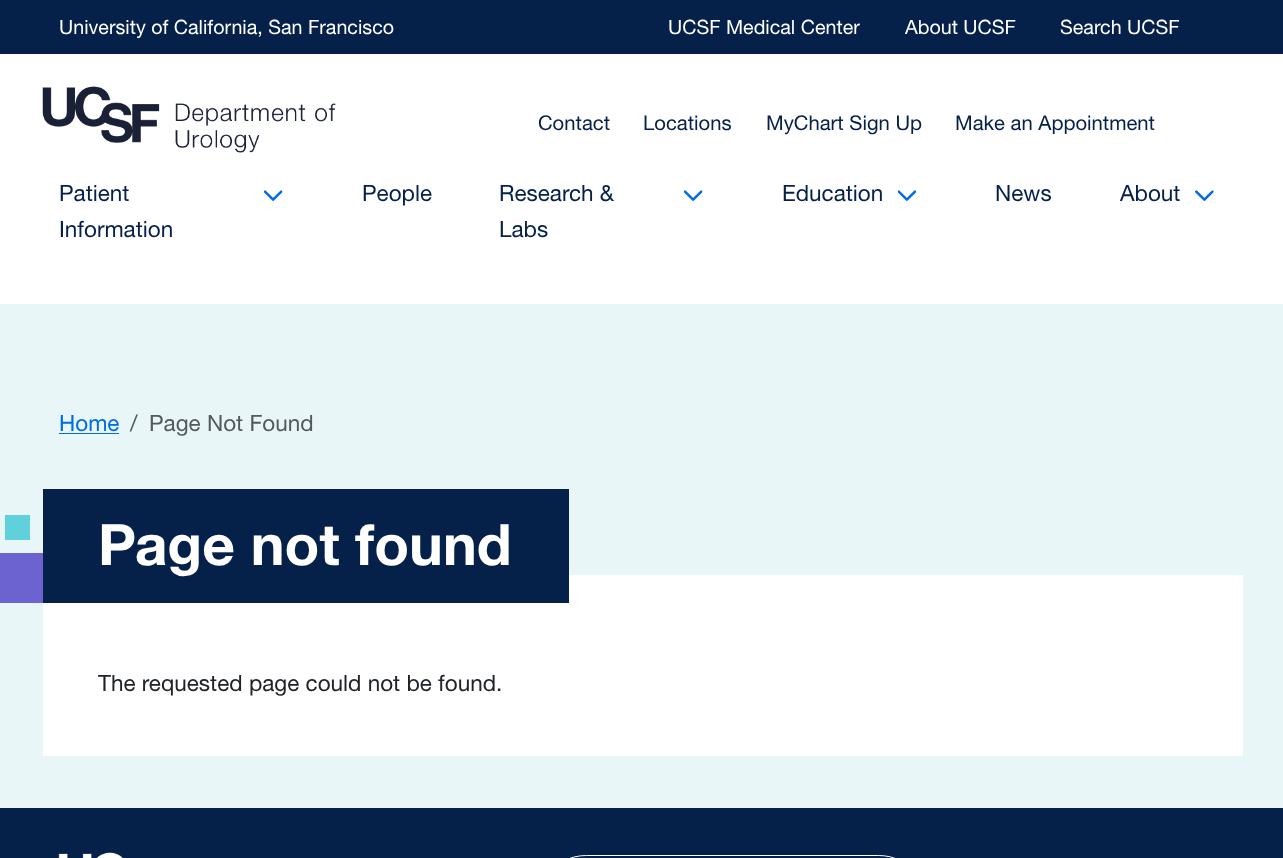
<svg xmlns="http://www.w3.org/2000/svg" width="1283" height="858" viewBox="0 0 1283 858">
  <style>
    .t1 { font: 19.7px 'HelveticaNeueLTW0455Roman'; fill: #fff; }
    .t2 { font: 20.25px 'HelveticaNeueLTW0455Roman'; fill: #052049; }
    .t3 { font: 22.5px 'HelveticaNeueLTW0455Roman'; fill: #052049; }
    .t4 { font: 22.5px 'HelveticaNeueLTW0455Roman'; fill: #006be9; }
    .t5 { font: 22.5px 'HelveticaNeueLTW0455Roman'; fill: #53595d; }
    .t6 { font: bold 57px 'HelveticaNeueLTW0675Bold'; fill: #fff; }
    .t7 { font: 22.5px 'HelveticaNeueLTW0455Roman'; fill: #202428; }
  </style>
  <rect width="100%" height="100%" fill="#e9f6f8"/>
  <rect x="0" y="0" width="1283" height="54" fill="#052049"/>
  <text x="59" y="34" class="t1">University of California, San Francisco</text>
  <text x="668" y="34" class="t1">UCSF Medical Center</text>
  <text x="905" y="34" class="t1">About UCSF</text>
  <text x="1060" y="34" class="t1">Search UCSF</text>
  <rect x="0" y="54" width="1283" height="250" fill="#fff"/>
  <image x="42" y="86" width="294" height="67" href="images/1.png"/>
  <text x="538" y="130" class="t2">Contact</text>
  <text x="643" y="130" class="t2">Locations</text>
  <text x="766" y="130" class="t2">MyChart Sign Up</text>
  <text x="955" y="130" class="t2">Make an Appointment</text>
  <text x="59" y="201" class="t3">Patient</text>
  <image x="264" y="190" width="19" height="11" href="images/2.png"/>
  <text x="59" y="237" class="t3">Information</text>
  <text x="362" y="201" class="t3">People</text>
  <text x="499" y="201" class="t3">Research &amp;</text>
  <image x="684" y="190" width="19" height="11" href="images/2.png"/>
  <text x="499" y="237" class="t3">Labs</text>
  <text x="782" y="201" class="t3">Education</text>
  <image x="898" y="190" width="18" height="11" href="images/3.png"/>
  <text x="995" y="201" class="t3">News</text>
  <text x="1120" y="201" class="t3">About</text>
  <image x="1195" y="190" width="19" height="11" href="images/4.png"/>
  <text x="59" y="431" class="t4">Home</text>
  <rect x="59" y="433" width="60" height="1" fill="#006be9"/>
  <text x="130" y="431" class="t5">/</text>
  <text x="149" y="431" class="t5">Page Not Found</text>
  <rect x="43" y="575" width="1200" height="181" fill="#fff"/>
  <rect x="43" y="489" width="526" height="114" fill="#052049"/>
  <rect x="5" y="515" width="25" height="25" fill="#60d0da"/>
  <text x="98" y="565" class="t6">Page not found</text>
  <rect x="0" y="553" width="43" height="50" fill="#6c62d0"/>
  <text x="98" y="691" class="t7">The requested page could not be found.</text>
  <rect x="0" y="808" width="1283" height="50" fill="#052049"/>
  <image x="58" y="852" width="65" height="6" href="images/5.png"/>
  <rect x="556.5" y="855.5" width="352" height="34" rx="30" fill="none" stroke="#fff"/>
</svg>
